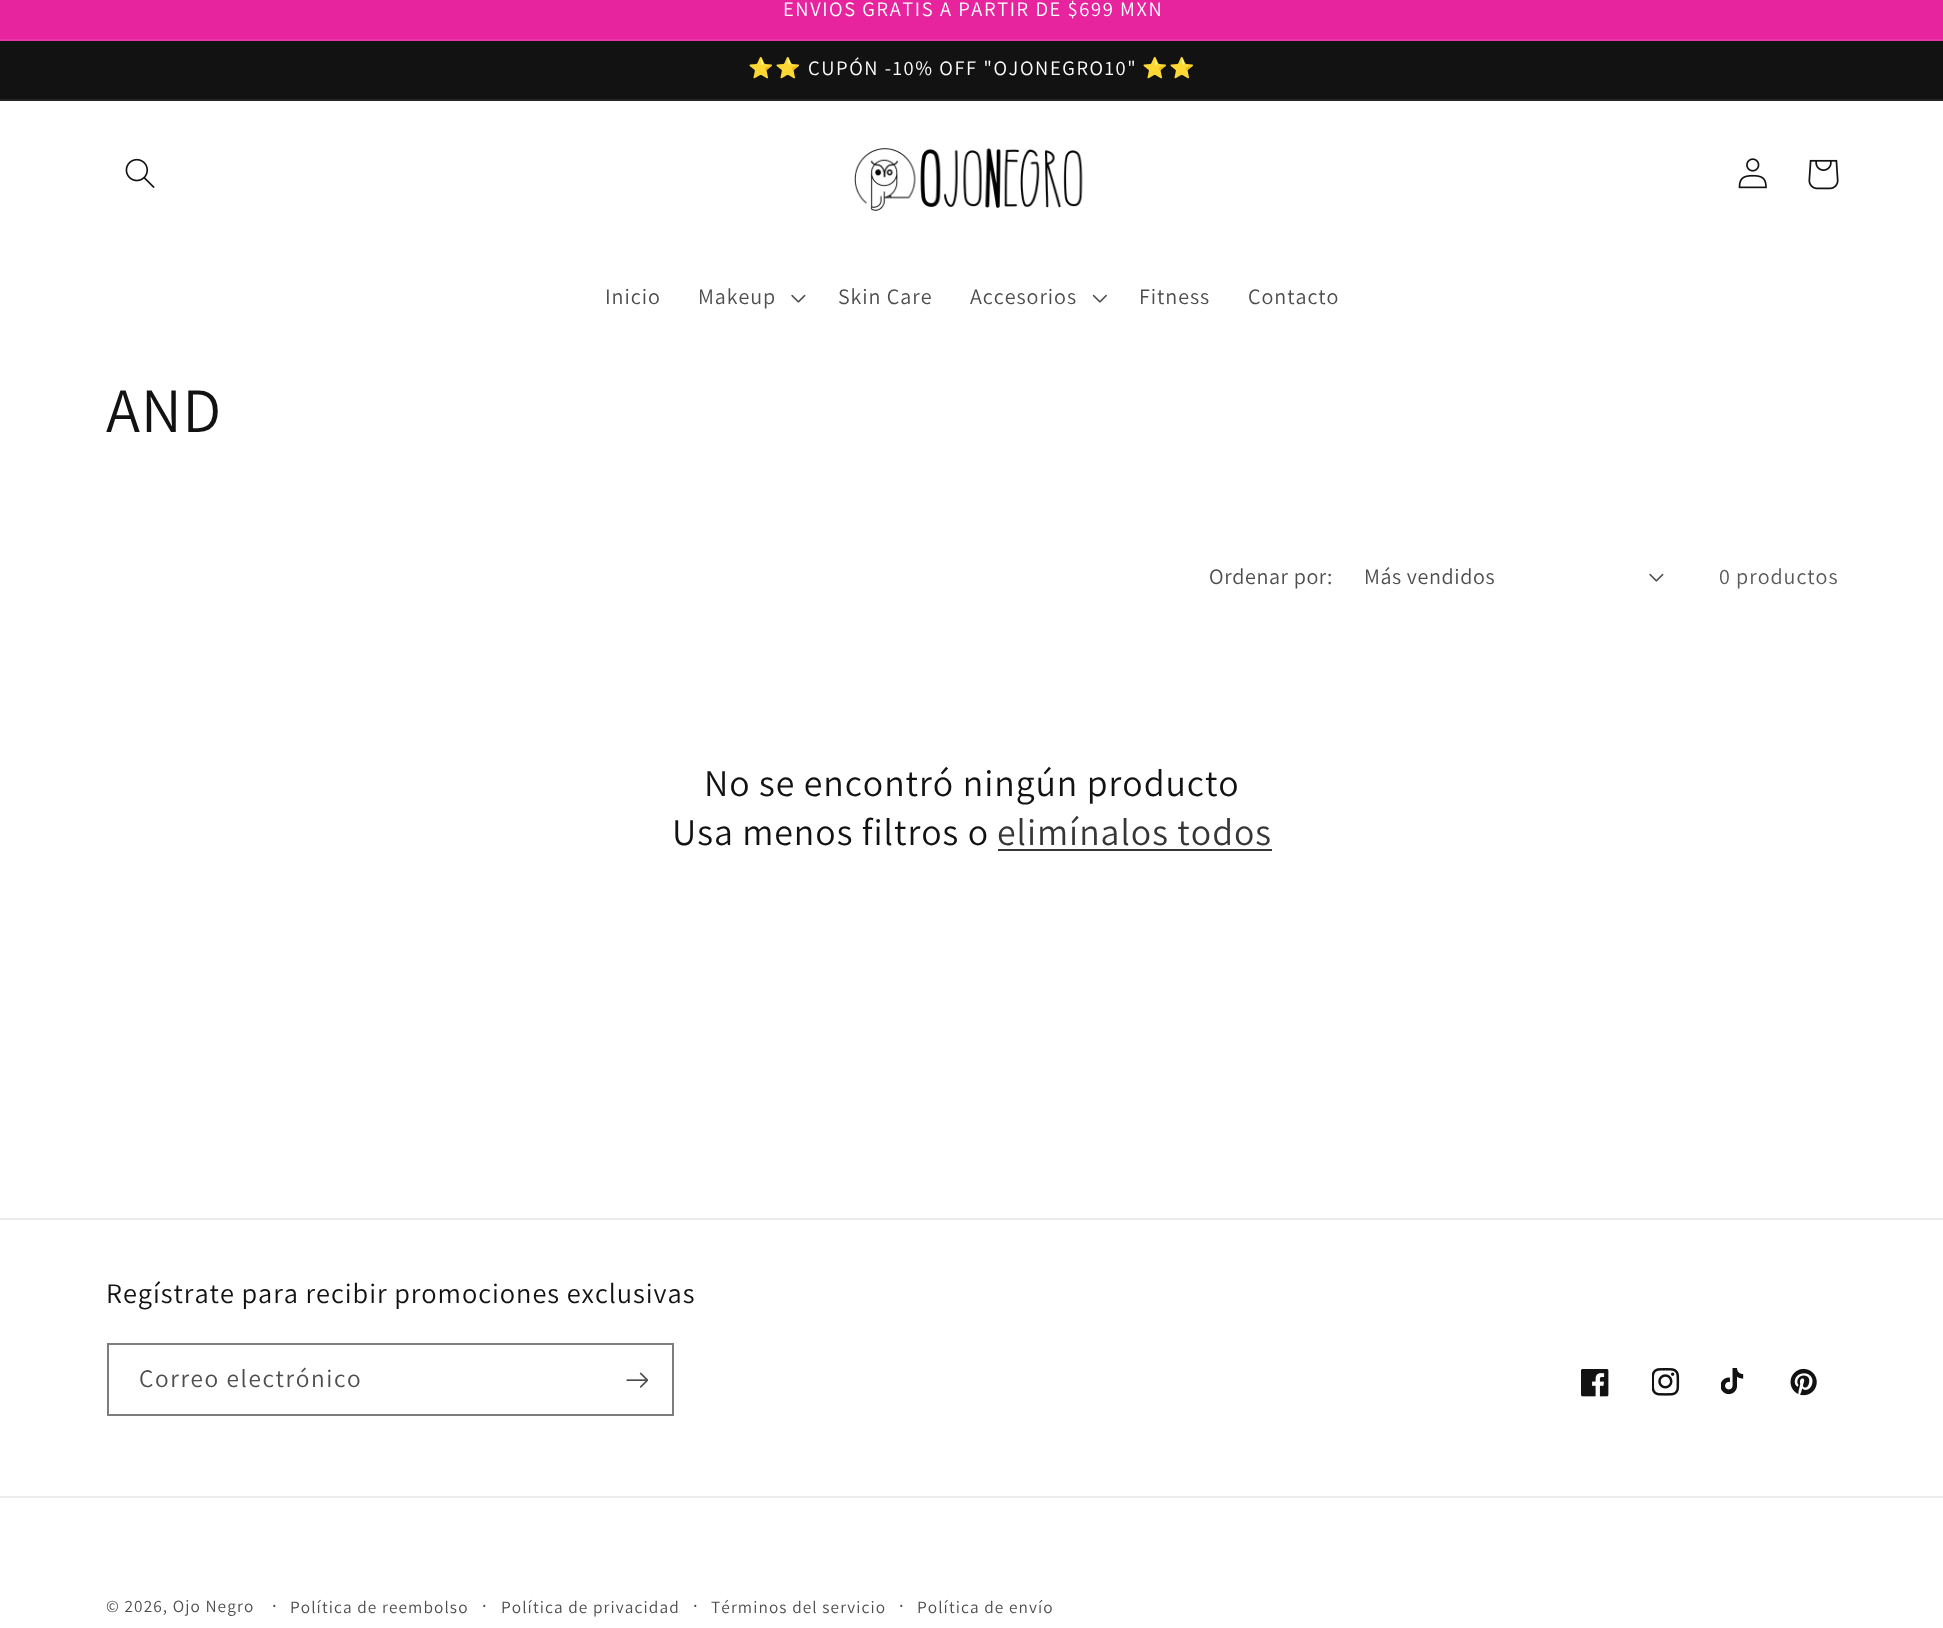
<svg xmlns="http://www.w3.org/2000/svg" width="1943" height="1628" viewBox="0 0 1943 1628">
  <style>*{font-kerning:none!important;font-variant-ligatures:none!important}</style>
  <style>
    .t1 { font: 20.5px Assistant; letter-spacing: 1.6px; fill: #fff; }
    .t2 { font: 20.5px Noto Color Emoji; letter-spacing: 1.6px; fill: #fff; }
    .t3 { font: 22px Assistant; letter-spacing: 0.95px; fill: #4d4d4d; }
    .t4 { font: 63px Assistant; letter-spacing: 0.95px; fill: #121212; }
    .t5 { font: 22px Assistant; letter-spacing: 0.6px; fill: #4d4d4d; }
    .t6 { font: 22px Assistant; letter-spacing: 0.95px; fill: #595959; }
    .t7 { font: 37.75px Assistant; letter-spacing: 0.95px; fill: #121212; }
    .t8 { font: 37.75px Assistant; letter-spacing: 0.95px; fill: #363636; }
    .t9 { font: 28.35px Assistant; letter-spacing: 0.95px; fill: #121212; }
    .t10 { font: 25.25px Assistant; letter-spacing: 1.6px; fill: #4d4d4d; }
    .t11 { font: 17.25px Assistant; letter-spacing: 1.1px; fill: #4d4d4d; }
    .t12 { font: 19px Assistant; letter-spacing: 1.1px; fill: #4d4d4d; }
  </style>
  <rect width="100%" height="100%" fill="#fff"/>
  <rect x="0" y="0" width="1943" height="39" fill="#e7249e"/>
  <rect x="0" y="39" width="1943" height="2" fill="#e936a6"/>
  <text x="783" y="16" class="t1">ENVIOS GRATIS A PARTIR DE $699 MXN</text>
  <rect x="0" y="41" width="1943" height="58" fill="#121212"/>
  <rect x="0" y="99" width="1943" height="2" fill="#252525"/>
  <text x="748" y="75" class="t2">⭐⭐</text>
  <text x="808" y="75" class="t1">CUPÓN -10% OFF "OJONEGRO10"</text>
  <text x="1142" y="75" class="t2">⭐⭐</text>
  <image x="125" y="158" width="30" height="30" href="images/1.png"/>
  <image x="854" y="148" width="229" height="63" href="images/2.png"/>
  <image x="1738" y="158" width="29" height="31" href="images/3.png"/>
  <image x="1808" y="159" width="31" height="31" href="images/4.png"/>
  <text x="605" y="304" class="t3">Inicio</text>
  <text x="698" y="304" class="t3">Makeup</text>
  <image x="791" y="294" width="15" height="9" href="images/5.png"/>
  <text x="838" y="304" class="t3">Skin Care</text>
  <text x="970" y="304" class="t3">Accesorios</text>
  <image x="1092" y="294" width="15" height="9" href="images/6.png"/>
  <text x="1139" y="304" class="t3">Fitness</text>
  <text x="1248" y="304" class="t3">Contacto</text>
  <text x="106" y="432" class="t4">AND</text>
  <text x="1209" y="584" class="t5">Ordenar por:</text>
  <text x="1364" y="584" class="t5">Más vendidos</text>
  <image x="1649" y="573" width="15" height="9" href="images/5.png"/>
  <text x="1719" y="584" class="t6">0 productos</text>
  <text x="704" y="796" class="t7">No se encontró ningún producto</text>
  <text x="672" y="845" class="t7">Usa menos filtros o</text>
  <text x="997" y="845" class="t8">elimínalos todos</text>
  <rect x="998" y="849" width="274" height="2" fill="#363636"/>
  <rect x="0" y="1218" width="1943" height="2" fill="#ececec"/>
  <text x="106" y="1303" class="t9">Regístrate para recibir promociones exclusivas</text>
  <rect x="108" y="1344" width="565" height="71" fill="none" stroke="#7d7d7d" stroke-width="2"/>
  <text x="139" y="1387" class="t10">Correo electrónico</text>
  <image x="626" y="1372" width="22" height="16" href="images/7.png"/>
  <image x="1581" y="1369" width="28" height="28" href="images/8.png"/>
  <image x="1652" y="1368" width="28" height="28" href="images/9.png"/>
  <image x="1721" y="1368" width="23" height="27" href="images/10.png"/>
  <image x="1790" y="1368" width="27" height="28" href="images/11.png"/>
  <rect x="0" y="1496" width="1943" height="2" fill="#ececec"/>
  <text x="106" y="1612" class="t11">© 2026, Ojo Negro</text>
  <text x="272" y="1612" class="t12">·</text>
  <text x="290" y="1613" class="t11">Política de reembolso</text>
  <text x="482" y="1612" class="t12">·</text>
  <text x="501" y="1613" class="t11">Política de privacidad</text>
  <text x="693" y="1612" class="t12">·</text>
  <text x="711" y="1613" class="t11">Términos del servicio</text>
  <text x="899" y="1612" class="t12">·</text>
  <text x="917" y="1613" class="t11">Política de envío</text>
</svg>
